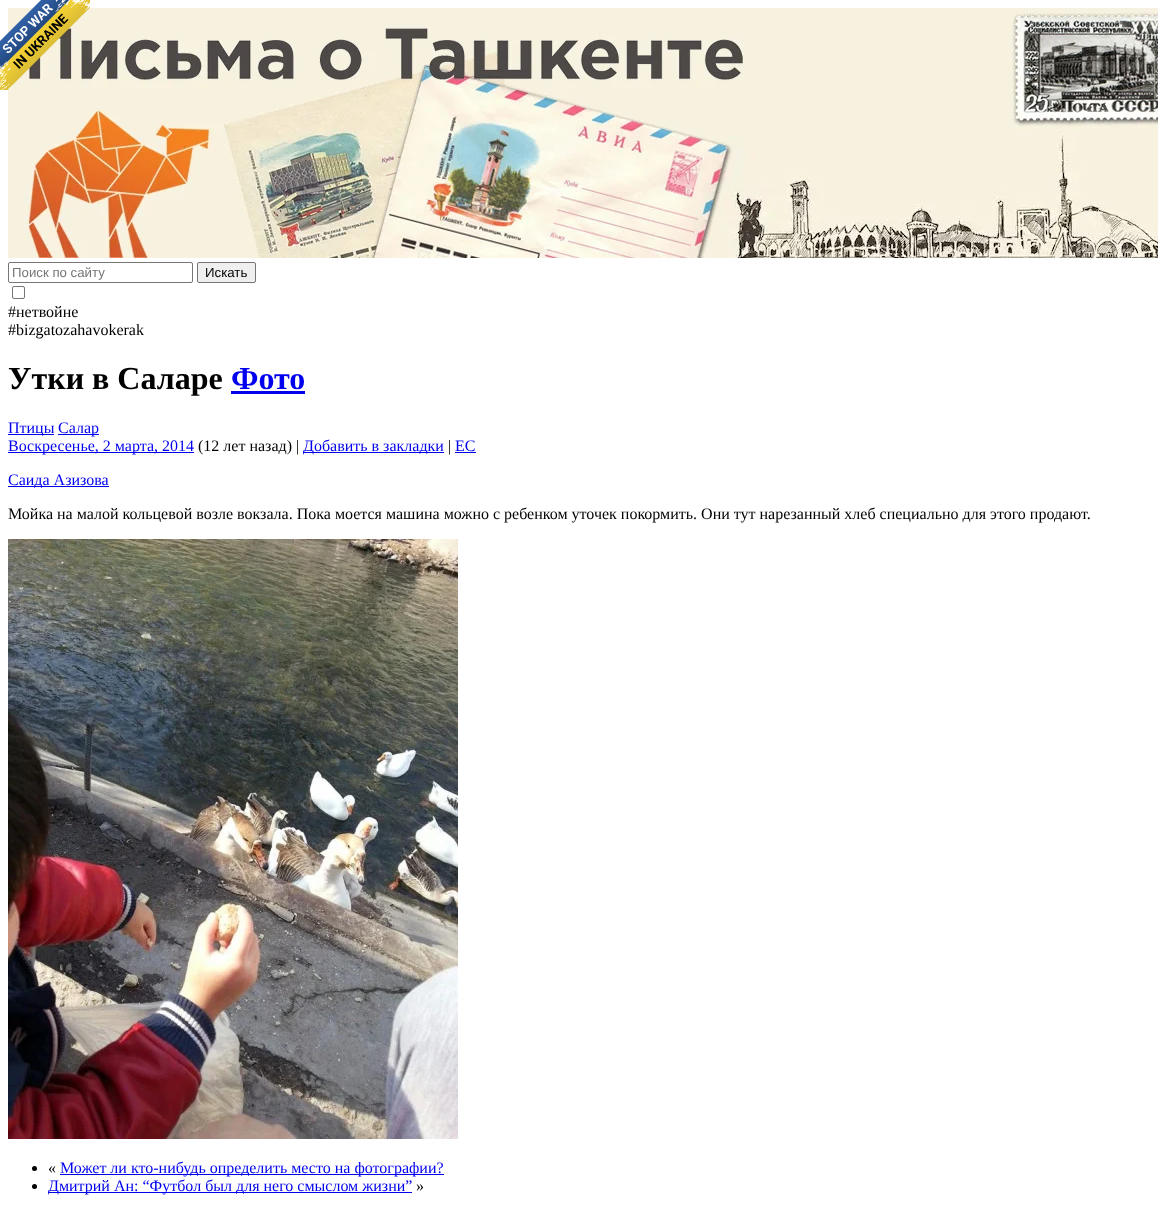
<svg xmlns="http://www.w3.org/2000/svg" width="1158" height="1221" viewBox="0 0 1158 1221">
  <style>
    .t1 { font: 13.25px Liberation Sans; fill: #757575; }
    .t2 { font: 13.25px Liberation Sans; fill: #000; }
    .t3 { font: 16px Liberation Serif; fill: #000; }
    .t4 { font: bold 32px Liberation Serif; fill: #000; }
    .t5 { font: bold 32px Liberation Serif; fill: #00e; }
    .t6 { font: 16px Liberation Serif; fill: #00e; }
  </style>
  <rect width="100%" height="100%" fill="#fff"/>
  <image x="8" y="8" width="1150" height="250" href="images/2.png"/>
  <image x="0" y="0" width="90" height="90" href="images/1.png"/>
  <rect x="8.5" y="262.5" width="184" height="20" rx="1.5" fill="none" stroke="#767676"/>
  <text x="12" y="277" class="t1">Поиск по сайту</text>
  <rect x="197.5" y="262.5" width="58" height="20" rx="1.5" fill="#efefef" stroke="#767676"/>
  <text x="205" y="277" class="t2">Искать</text>
  <rect x="12.5" y="286.5" width="12" height="12" rx="1.5" fill="none" stroke="#767676"/>
  <text x="8" y="317" class="t3">#нетвойне</text>
  <text x="8" y="335" class="t3">#bizgatozahavokerak</text>
  <text x="8" y="389" class="t4">Утки в Саларе</text>
  <text x="231" y="389" class="t5">Фото</text>
  <rect x="231" y="391" width="74" height="3" fill="#00e"/>
  <rect x="8" y="434" width="46" height="1" fill="#00e"/>
  <text x="8" y="433" class="t6">Птицы</text>
  <rect x="58" y="434" width="41" height="1" fill="#00e"/>
  <text x="58" y="433" class="t6">Салар</text>
  <rect x="8" y="452" width="186" height="1" fill="#00e"/>
  <text x="8" y="451" class="t6">Воскресенье, 2 марта, 2014</text>
  <text x="198" y="451" class="t3">(12 лет назад) |</text>
  <rect x="303" y="452" width="141" height="1" fill="#00e"/>
  <text x="303" y="451" class="t6">Добавить в закладки</text>
  <text x="448" y="451" class="t3">|</text>
  <text x="455" y="451" class="t6">EC</text>
  <rect x="455" y="452" width="21" height="1" fill="#00e"/>
  <rect x="8" y="486" width="101" height="1" fill="#00e"/>
  <text x="8" y="485" class="t6">Саида Азизова</text>
  <text x="8" y="519" class="t3">Мойка на малой кольцевой возле вокзала. Пока моется машина можно с ребенком уточек покормить. Они тут нарезанный хлеб специально для этого продают.</text>
  <image x="8" y="539" width="450" height="600" href="images/3.png"/>
  <circle cx="34.5" cy="1168.5" r="2.5" fill="#000"/>
  <text x="48" y="1173" class="t3">«</text>
  <rect x="60" y="1174" width="384" height="1" fill="#00e"/>
  <text x="60" y="1173" class="t6">Может ли кто-нибудь определить место на фотографии?</text>
  <circle cx="34.5" cy="1186.5" r="2.5" fill="#000"/>
  <rect x="48" y="1192" width="364" height="1" fill="#00e"/>
  <text x="48" y="1191" class="t6">Дмитрий Ан: “Футбол был для него смыслом жизни”</text>
  <text x="416" y="1191" class="t3">»</text>
</svg>
